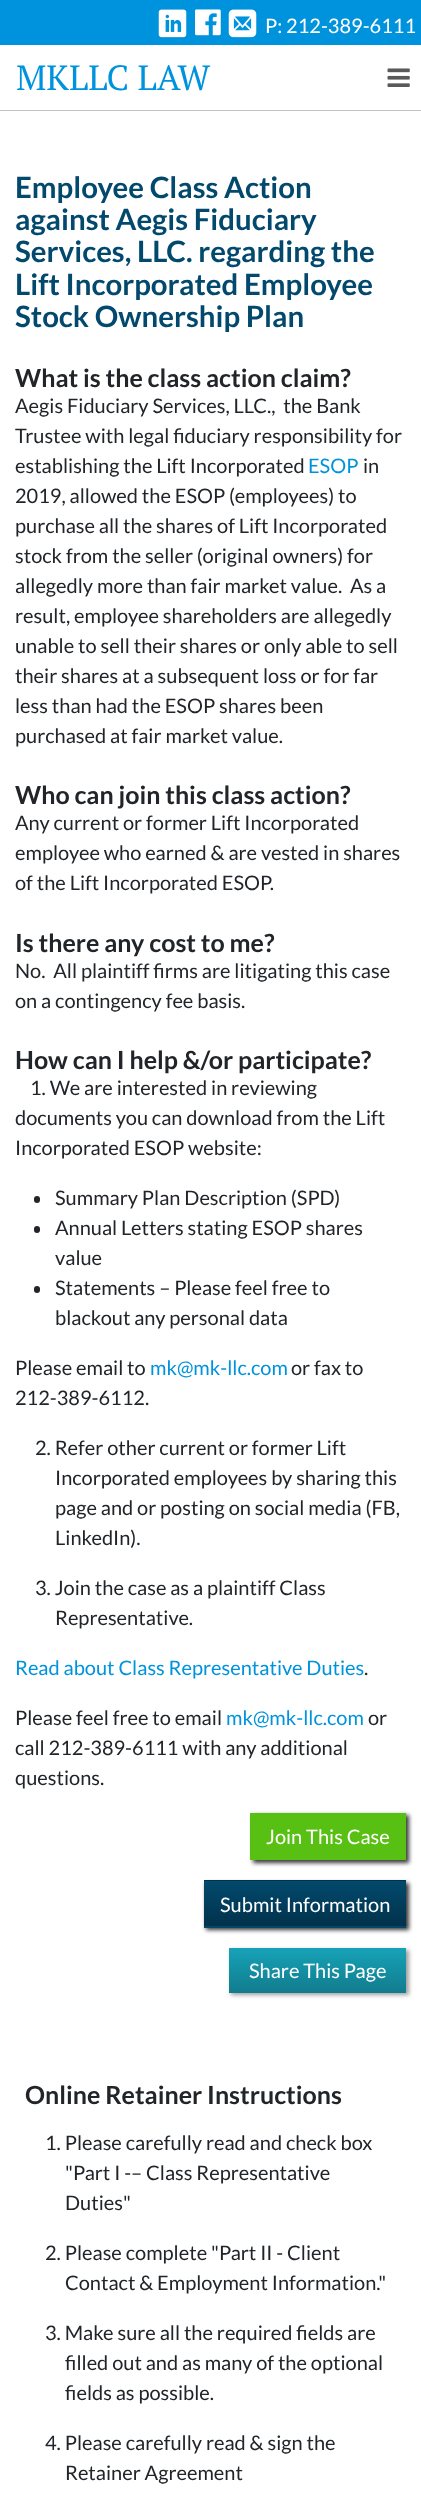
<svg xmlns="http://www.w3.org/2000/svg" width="421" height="2507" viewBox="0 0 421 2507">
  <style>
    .t1 { font: 20px Lato; fill: #fff; }
    .t2 { font: 35px PT Serif; fill: #0093dd; }
    .t3 { font: bold 29.4px Lato; fill: #02496d; }
    .t4 { font: bold 25px Lato; fill: #212529; }
    .t5 { font: 20px Lato; fill: #212529; }
    .t6 { font: 20px Lato; fill: #0093dd; }
  </style>
  <defs>
    <linearGradient id="g1" gradientUnits="userSpaceOnUse" x1="305" y1="1836" x2="305" y2="1881"><stop offset="0" stop-color="#02496d"/><stop offset="1" stop-color="#01324b"/></linearGradient>
    <linearGradient id="g2" gradientUnits="userSpaceOnUse" x1="305" y1="1881" x2="305" y2="1926"><stop offset="0" stop-color="#02496d"/><stop offset="1" stop-color="#01324b"/></linearGradient>
    <linearGradient id="g3" gradientUnits="userSpaceOnUse" x1="305" y1="1926" x2="305" y2="1971"><stop offset="0" stop-color="#02496d"/><stop offset="1" stop-color="#01324b"/></linearGradient>
    <linearGradient id="g4" gradientUnits="userSpaceOnUse" x1="318" y1="1948" x2="318" y2="1993"><stop offset="0" stop-color="#17a2b8"/><stop offset="1" stop-color="#117c8d"/></linearGradient>
  </defs>
  <rect width="100%" height="100%" fill="#fff"/>
  <rect x="0" y="0" width="421" height="45" fill="#0093dd"/>
  <image x="158" y="9" width="29" height="29" href="images/1.png"/>
  <image x="195" y="9" width="26" height="27" href="images/2.png"/>
  <image x="228" y="9" width="29" height="29" href="images/3.png"/>
  <text x="265" y="33" class="t1">P: 212-389-6111</text>
  <rect x="0" y="110" width="421" height="1" fill="#c2c2c2"/>
  <text x="16" y="90" class="t2">MKLLC LAW</text>
  <image x="387" y="68" width="23" height="19" href="images/4.png"/>
  <text x="15" y="198" class="t3">Employee Class Action</text>
  <text x="15" y="230" class="t3">against Aegis Fiduciary</text>
  <text x="15" y="262" class="t3">Services, LLC. regarding the</text>
  <text x="15" y="295" class="t3">Lift Incorporated Employee</text>
  <text x="15" y="327" class="t3">Stock Ownership Plan</text>
  <text x="15" y="387" class="t4">What is the class action claim?</text>
  <text x="15" y="413" class="t5" xml:space="preserve">Aegis Fiduciary Services, LLC.,  the Bank</text>
  <text x="15" y="443" class="t5">Trustee with legal fiduciary responsibility for</text>
  <text x="15" y="473" class="t5">establishing the Lift Incorporated</text>
  <text x="308" y="473" class="t6">ESOP</text>
  <text x="363" y="473" class="t5">in</text>
  <text x="15" y="503" class="t5">2019, allowed the ESOP (employees) to</text>
  <text x="15" y="533" class="t5">purchase all the shares of Lift Incorporated</text>
  <text x="15" y="563" class="t5">stock from the seller (original owners) for</text>
  <text x="15" y="593" class="t5" xml:space="preserve">allegedly more than fair market value.  As a</text>
  <text x="15" y="623" class="t5">result, employee shareholders are allegedly</text>
  <text x="15" y="653" class="t5">unable to sell their shares or only able to sell</text>
  <text x="15" y="683" class="t5">their shares at a subsequent loss or for far</text>
  <text x="15" y="713" class="t5">less than had the ESOP shares been</text>
  <text x="15" y="743" class="t5">purchased at fair market value.</text>
  <text x="15" y="804" class="t4">Who can join this class action?</text>
  <text x="15" y="830" class="t5">Any current or former Lift Incorporated</text>
  <text x="15" y="860" class="t5">employee who earned &amp; are vested in shares</text>
  <text x="15" y="890" class="t5">of the Lift Incorporated ESOP.</text>
  <text x="15" y="952" class="t4">Is there any cost to me?</text>
  <text x="15" y="978" class="t5" xml:space="preserve">No.  All plaintiff firms are litigating this case</text>
  <text x="15" y="1008" class="t5">on a contingency fee basis.</text>
  <text x="15" y="1069" class="t4">How can I help &amp;/or participate?</text>
  <text x="30" y="1095" class="t5">1. We are interested in reviewing</text>
  <text x="15" y="1125" class="t5">documents you can download from the Lift</text>
  <text x="15" y="1155" class="t5">Incorporated ESOP website:</text>
  <rect x="34" y="1196" width="6" height="7" rx="3" fill="#212529"/>
  <text x="55" y="1205" class="t5">Summary Plan Description (SPD)</text>
  <rect x="34" y="1226" width="6" height="7" rx="3" fill="#212529"/>
  <text x="55" y="1235" class="t5">Annual Letters stating ESOP shares</text>
  <text x="55" y="1265" class="t5">value</text>
  <rect x="34" y="1286" width="6" height="7" rx="3" fill="#212529"/>
  <text x="55" y="1295" class="t5">Statements – Please feel free to</text>
  <text x="55" y="1325" class="t5">blackout any personal data</text>
  <text x="15" y="1375" class="t5">Please email to</text>
  <text x="150" y="1375" class="t6">mk@mk-llc.com</text>
  <text x="291" y="1375" class="t5">or fax to</text>
  <text x="15" y="1405" class="t5">212-389-6112.</text>
  <text x="35" y="1455" class="t5">2. Refer other current or former Lift</text>
  <text x="55" y="1485" class="t5">Incorporated employees by sharing this</text>
  <text x="55" y="1515" class="t5">page and or posting on social media (FB,</text>
  <text x="55" y="1545" class="t5">LinkedIn).</text>
  <text x="35" y="1595" class="t5">3. Join the case as a plaintiff Class</text>
  <text x="55" y="1625" class="t5">Representative.</text>
  <text x="15" y="1675" class="t6">Read about Class Representative Duties</text>
  <text x="364" y="1675" class="t5">.</text>
  <text x="15" y="1725" class="t5">Please feel free to email</text>
  <text x="226" y="1725" class="t6">mk@mk-llc.com</text>
  <text x="368" y="1725" class="t5">or</text>
  <text x="15" y="1755" class="t5">call 212-389-6111 with any additional</text>
  <text x="15" y="1785" class="t5">questions.</text>
  <rect x="253" y="1815" width="156" height="48" fill="#383838" filter="blur(2px)"/>
  <rect x="250" y="1813" width="156" height="47" fill="#58bf13"/>
  <text x="266" y="1844" class="t1">Join This Case</text>
  <rect x="206" y="1883" width="203" height="47" fill="#383838" filter="blur(2px)"/>
  <rect x="204" y="1880" width="202" height="1" fill="url(#g1)"/>
  <rect x="204" y="1881" width="202" height="45" fill="url(#g2)"/>
  <rect x="204" y="1926" width="202" height="2" fill="url(#g3)"/>
  <text x="220" y="1912" class="t1">Submit Information</text>
  <rect x="231" y="1950" width="178" height="45" fill="#9f9f9f" filter="blur(2px)"/>
  <rect x="229" y="1948" width="177" height="45" fill="url(#g4)"/>
  <text x="249" y="1978" class="t1">Share This Page</text>
  <text x="25" y="2104" class="t4">Online Retainer Instructions</text>
  <text x="45" y="2150" class="t5">1. Please carefully read and check box</text>
  <text x="65" y="2180" class="t5">"Part I -– Class Representative</text>
  <text x="65" y="2210" class="t5">Duties"</text>
  <text x="45" y="2260" class="t5">2. Please complete "Part II - Client</text>
  <text x="65" y="2290" class="t5">Contact &amp; Employment Information."</text>
  <text x="45" y="2340" class="t5">3. Make sure all the required fields are</text>
  <text x="65" y="2370" class="t5">filled out and as many of the optional</text>
  <text x="65" y="2400" class="t5">fields as possible.</text>
  <text x="45" y="2450" class="t5">4. Please carefully read &amp; sign the</text>
  <text x="65" y="2480" class="t5">Retainer Agreement</text>
</svg>
